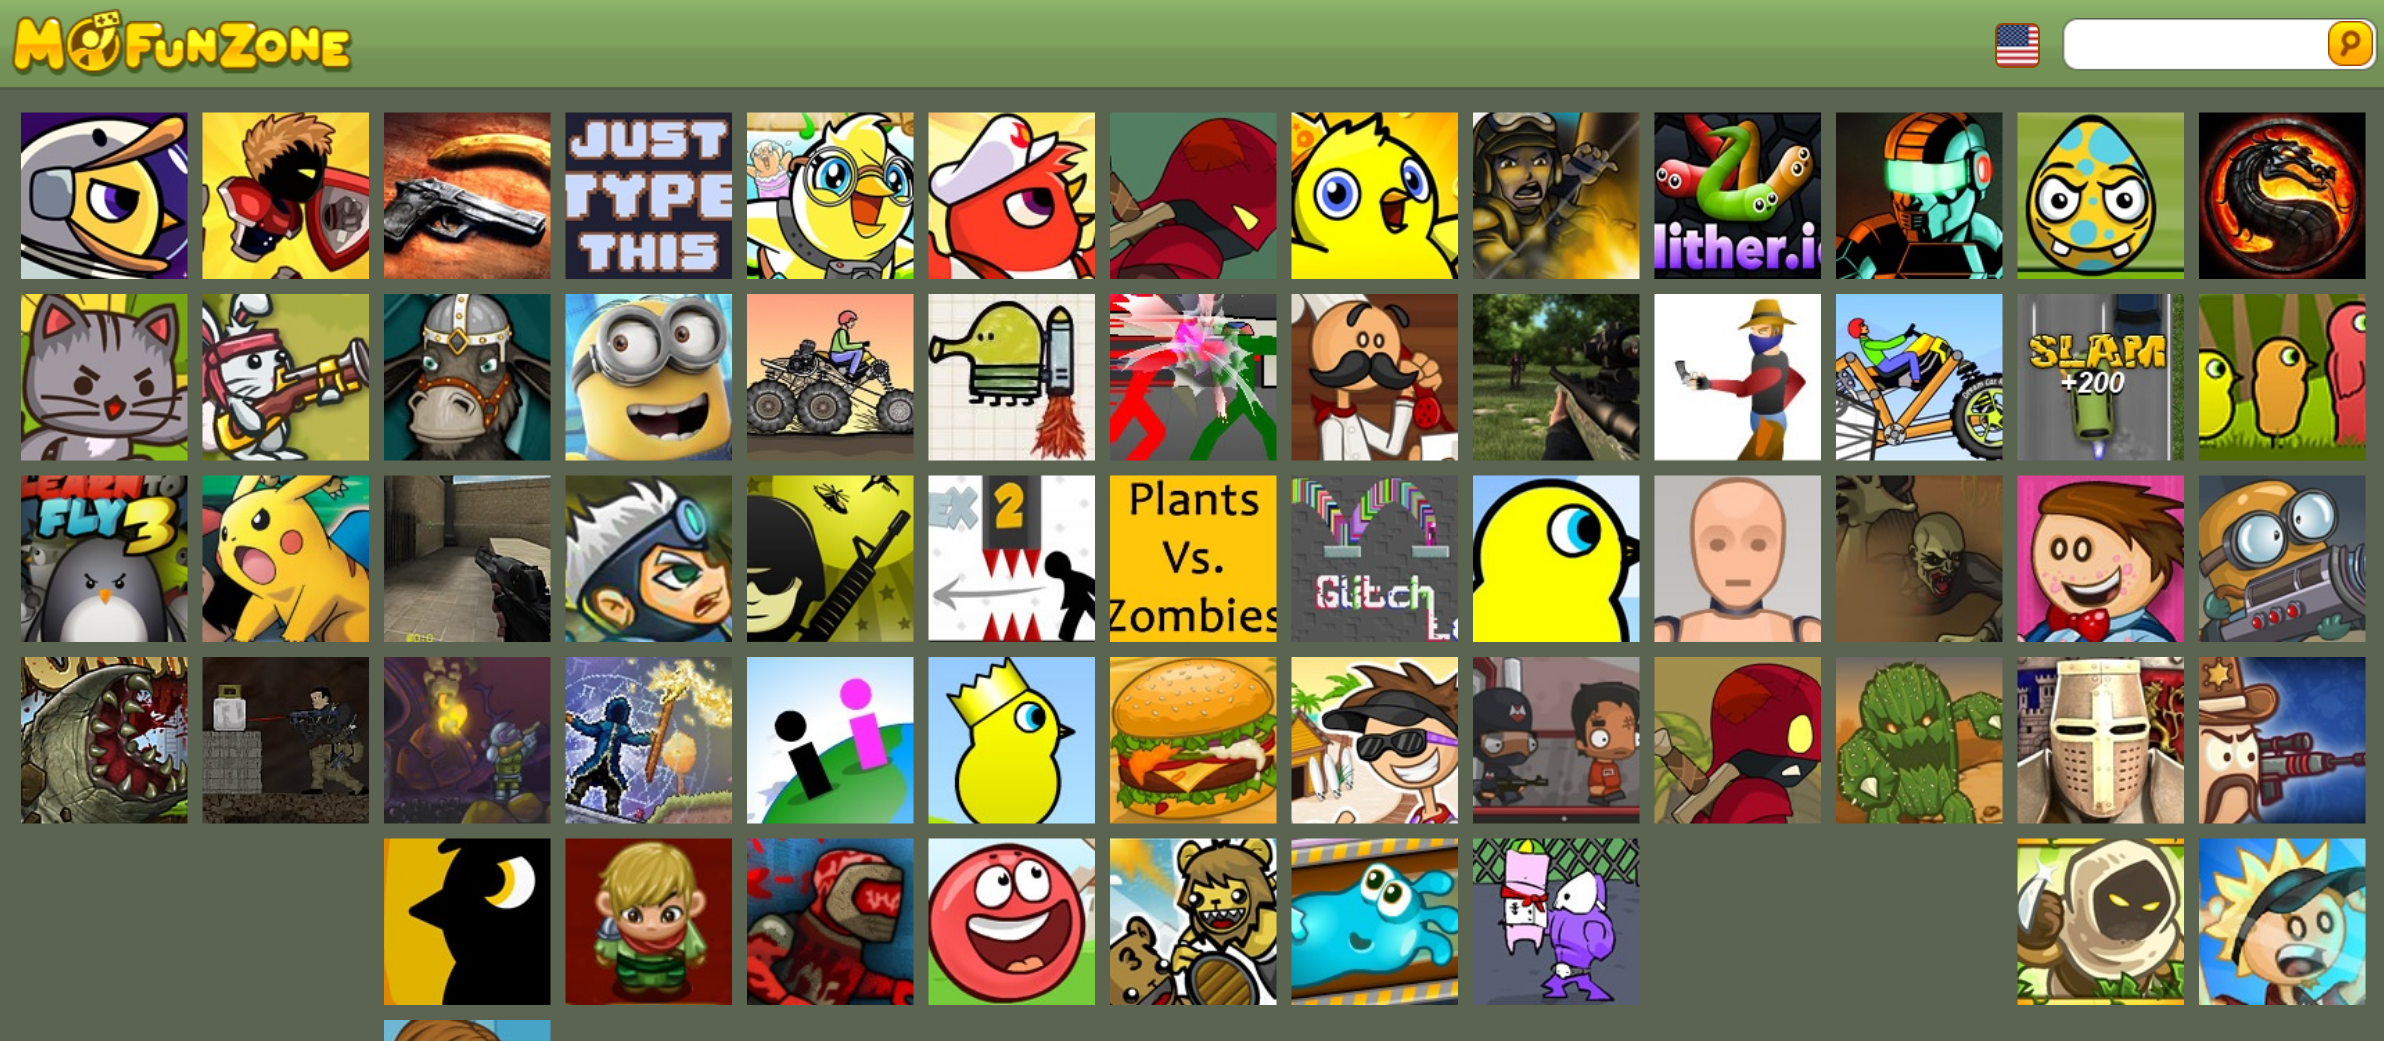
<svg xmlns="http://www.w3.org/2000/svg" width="2384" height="1041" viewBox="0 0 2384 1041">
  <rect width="100%" height="100%" fill="#5a6450"/>
  <image x="0" y="0" width="2384" height="90" href="images/1.png"/>
  <image x="11" y="8" width="343" height="69" href="images/2.png"/>
  <image x="1996" y="23" width="43" height="44" href="images/3.png"/>
  <rect x="1996" y="24" width="43" height="43" rx="7" fill="none" stroke="#994800" stroke-width="2"/>
  <image x="2062" y="18" width="316" height="53" href="images/4.png"/>
  <image x="2328" y="21" width="45" height="45" href="images/5.png"/>
  <image x="21" y="112" width="167" height="167" href="images/6.png"/>
  <image x="202" y="112" width="167" height="167" href="images/7.png"/>
  <image x="384" y="112" width="167" height="167" href="images/8.png"/>
  <image x="565" y="112" width="167" height="167" href="images/9.png"/>
  <image x="747" y="112" width="167" height="167" href="images/10.png"/>
  <image x="928" y="112" width="167" height="167" href="images/11.png"/>
  <image x="1110" y="112" width="167" height="167" href="images/12.png"/>
  <image x="1291" y="112" width="167" height="167" href="images/13.png"/>
  <image x="1473" y="112" width="167" height="167" href="images/14.png"/>
  <image x="1654" y="112" width="167" height="167" href="images/15.png"/>
  <image x="1836" y="112" width="167" height="167" href="images/16.png"/>
  <image x="2017" y="112" width="167" height="167" href="images/17.png"/>
  <image x="2199" y="112" width="167" height="167" href="images/18.png"/>
  <image x="21" y="294" width="167" height="167" href="images/19.png"/>
  <image x="202" y="294" width="167" height="167" href="images/20.png"/>
  <image x="384" y="294" width="167" height="167" href="images/21.png"/>
  <image x="565" y="294" width="167" height="167" href="images/22.png"/>
  <image x="747" y="294" width="167" height="167" href="images/23.png"/>
  <image x="928" y="294" width="167" height="167" href="images/24.png"/>
  <image x="1110" y="294" width="167" height="167" href="images/25.png"/>
  <image x="1291" y="294" width="167" height="167" href="images/26.png"/>
  <image x="1473" y="294" width="167" height="167" href="images/27.png"/>
  <image x="1654" y="294" width="167" height="167" href="images/28.png"/>
  <image x="1836" y="294" width="167" height="167" href="images/29.png"/>
  <image x="2017" y="294" width="167" height="167" href="images/30.png"/>
  <image x="2199" y="294" width="167" height="167" href="images/31.png"/>
  <image x="21" y="475" width="167" height="167" href="images/32.png"/>
  <image x="202" y="475" width="167" height="167" href="images/33.png"/>
  <image x="384" y="475" width="167" height="167" href="images/34.png"/>
  <image x="565" y="475" width="167" height="167" href="images/35.png"/>
  <image x="747" y="475" width="167" height="167" href="images/36.png"/>
  <image x="928" y="475" width="167" height="167" href="images/37.png"/>
  <image x="1110" y="475" width="167" height="167" href="images/38.png"/>
  <image x="1291" y="475" width="167" height="167" href="images/39.png"/>
  <image x="1473" y="475" width="167" height="167" href="images/40.png"/>
  <image x="1654" y="475" width="167" height="167" href="images/41.png"/>
  <image x="1836" y="475" width="167" height="167" href="images/42.png"/>
  <image x="2017" y="475" width="167" height="167" href="images/43.png"/>
  <image x="2199" y="475" width="167" height="167" href="images/44.png"/>
  <image x="21" y="657" width="167" height="167" href="images/45.png"/>
  <image x="202" y="657" width="167" height="167" href="images/46.png"/>
  <image x="384" y="657" width="167" height="167" href="images/47.png"/>
  <image x="565" y="657" width="167" height="167" href="images/48.png"/>
  <image x="747" y="657" width="167" height="167" href="images/49.png"/>
  <image x="928" y="657" width="167" height="167" href="images/50.png"/>
  <image x="1110" y="657" width="167" height="167" href="images/51.png"/>
  <image x="1291" y="657" width="167" height="167" href="images/52.png"/>
  <image x="1473" y="657" width="167" height="167" href="images/53.png"/>
  <image x="1654" y="657" width="167" height="167" href="images/54.png"/>
  <image x="1836" y="657" width="167" height="167" href="images/55.png"/>
  <image x="2017" y="657" width="167" height="167" href="images/56.png"/>
  <image x="2199" y="657" width="167" height="167" href="images/57.png"/>
  <image x="384" y="838" width="167" height="167" href="images/58.png"/>
  <image x="565" y="838" width="167" height="167" href="images/59.png"/>
  <image x="747" y="838" width="167" height="167" href="images/60.png"/>
  <image x="928" y="838" width="167" height="167" href="images/61.png"/>
  <image x="1110" y="838" width="167" height="167" href="images/62.png"/>
  <image x="1291" y="838" width="167" height="167" href="images/63.png"/>
  <image x="1473" y="838" width="167" height="167" href="images/64.png"/>
  <image x="2017" y="838" width="167" height="167" href="images/65.png"/>
  <image x="2199" y="838" width="167" height="167" href="images/66.png"/>
  <image x="384" y="1020" width="167" height="21" href="images/67.png"/>
</svg>
